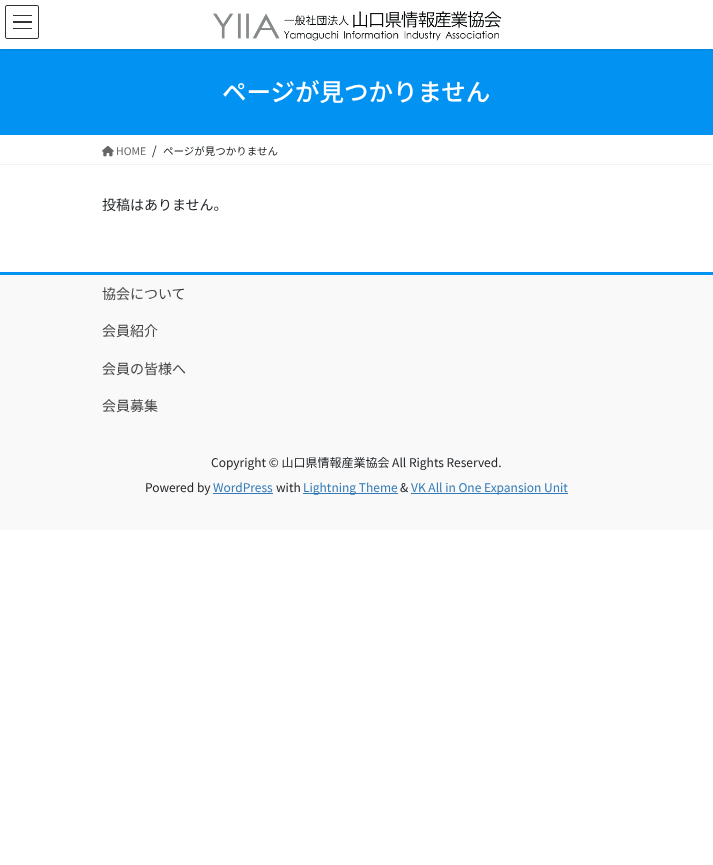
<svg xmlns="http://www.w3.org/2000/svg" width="713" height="865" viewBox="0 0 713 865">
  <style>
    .t1 { font: 500 24.5px Noto Sans JP; fill: #fff; }
    .t2 { font: 10.5px Noto Sans JP; fill: #666; }
    .t3 { font: 12px Noto Sans JP; fill: #212529; }
    .t4 { font: 10.5px Noto Sans JP; fill: #212529; }
    .t5 { font: 14px Noto Sans JP; fill: #212529; }
    .t6 { font: 14px Noto Sans JP; fill: #464646; }
    .t7 { font: 12px Noto Sans JP; fill: #337ab7; }
  </style>
  <defs>
    <clipPath id="clip1"><rect x="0" y="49" width="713" height="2"/></clipPath>
  </defs>
  <rect width="100%" height="100%" fill="#fff"/>
  <rect x="0" y="49" width="713" height="86" fill="#0292f2"/>
  <g clip-path="url(#clip1)">
    <rect x="0" y="1" width="713" height="49" fill="#0000001a" filter="blur(1.5px)"/>
  </g>
  <image x="213" y="11" width="289" height="30" href="images/1.png"/>
  <rect x="13" y="15" width="19" height="1" fill="#333"/>
  <rect x="13" y="21" width="19" height="2" fill="#333"/>
  <rect x="13" y="28" width="19" height="1" fill="#333"/>
  <rect x="5.5" y="5.5" width="33" height="33" rx="1.5" fill="none" stroke="#333"/>
  <text x="222" y="101" class="t1">ページが見つかりません</text>
  <rect x="0" y="164" width="713" height="1" fill="#f2f2f2"/>
  <image x="102" y="145" width="12" height="12" href="images/2.png"/>
  <text x="116" y="155" class="t2">HOME</text>
  <text x="152" y="155" class="t3">/</text>
  <text x="163" y="155" class="t4">ページが見つかりません</text>
  <text x="102" y="210" class="t5">投稿はありません。</text>
  <rect x="0" y="275" width="713" height="255" fill="#f9f9f9"/>
  <rect x="0" y="272" width="713" height="3" fill="#0292f2"/>
  <text x="102" y="299" class="t6">協会について</text>
  <text x="102" y="336" class="t6">会員紹介</text>
  <text x="102" y="374" class="t6">会員の皆様へ</text>
  <text x="102" y="411" class="t6">会員募集</text>
  <text x="211" y="467" class="t3">Copyright © 山口県情報産業協会 All Rights Reserved.</text>
  <text x="145" y="492" class="t3">Powered by</text>
  <text x="213" y="492" class="t7">WordPress</text>
  <rect x="213" y="493" width="60" height="1" fill="#337ab7"/>
  <text x="276" y="492" class="t3">with</text>
  <rect x="303" y="493" width="95" height="1" fill="#337ab7"/>
  <text x="303" y="492" class="t7">Lightning Theme</text>
  <text x="400" y="492" class="t3">&amp;</text>
  <rect x="411" y="493" width="157" height="1" fill="#337ab7"/>
  <text x="411" y="492" class="t7">VK All in One Expansion Unit</text>
</svg>
